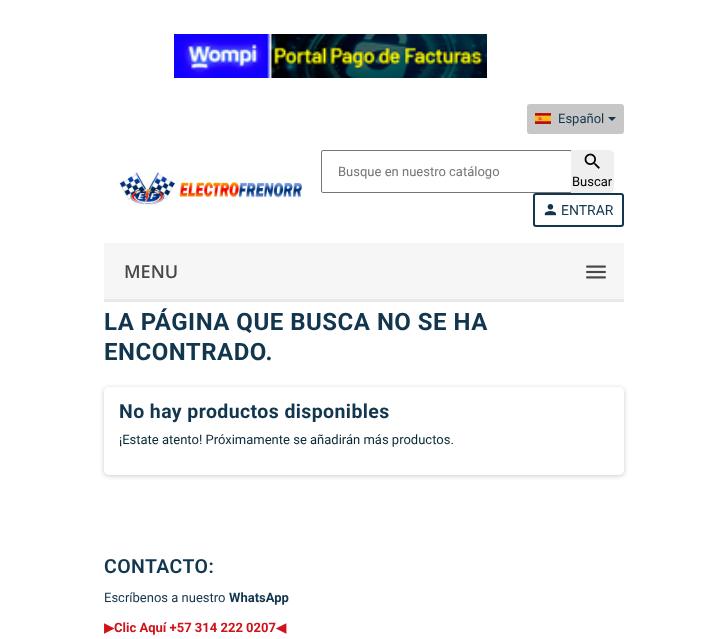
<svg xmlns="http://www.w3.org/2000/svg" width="728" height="639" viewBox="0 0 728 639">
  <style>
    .t1 { font: 13px Roboto; fill: #11364d; }
    .t2 { font: 13px Roboto; fill: #757575; }
    .t3 { font: 13px Roboto; fill: #000; }
    .t4 { font: 14px Roboto; fill: #11364d; }
    .t5 { font: 600 18px Open Sans; fill: #484848; }
    .t6 { font: bold 24px Roboto; letter-spacing: 0.5px; fill: #11364d; }
    .t7 { font: bold 19.5px Roboto; letter-spacing: 0.4px; fill: #11364d; }
    .t8 { font: 13px Roboto; fill: #0a2938; }
    .t9 { font: 600 19.5px Roboto; letter-spacing: 0.4px; fill: #11364d; }
    .t10 { font: bold 13px 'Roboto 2'; fill: #11364d; }
    .t11 { font: bold 13px DejaVu Sans; fill: #d0121a; }
    .t12 { font: bold 13px 'Roboto 2'; fill: #d0121a; }
  </style>
  <rect width="100%" height="100%" fill="#fff"/>
  <image x="174" y="34" width="313" height="44" href="images/1.png"/>
  <rect x="527" y="104" width="97" height="30" rx="3" fill="#c7c7c7"/>
  <image x="535" y="113" width="16" height="11" href="images/2.png"/>
  <text x="558" y="123" class="t1">Español</text>
  <path d="M608 117H616L612 121Z" fill="#11364d"/>
  <image x="119" y="172" width="183" height="33" href="images/3.png"/>
  <rect x="321.5" y="150.5" width="250" height="42" rx="1.5" fill="none" stroke="#767676"/>
  <text x="338" y="176" class="t2">Busque en nuestro catálogo</text>
  <path d="M571 150H609C612 150 614 152 614 155V188C614 191 612 193 609 193H571Z" fill="#efefef"/>
  <image x="584" y="153" width="16" height="16" href="images/4.png"/>
  <text x="572" y="186" class="t3">Buscar</text>
  <rect x="534" y="194" width="89" height="32" rx="2" fill="none" stroke="#11364d" stroke-width="2"/>
  <image x="544" y="204" width="12" height="12" href="images/5.png"/>
  <text x="561" y="215" class="t4">ENTRAR</text>
  <rect x="104" y="243" width="520" height="56" fill="#f6f6f6"/>
  <rect x="104" y="299" width="520" height="3" fill="#e9e9e9"/>
  <text x="124" y="278" class="t5">MENU</text>
  <image x="586" y="265" width="20" height="14" href="images/6.png"/>
  <text x="104" y="330" class="t6">LA PÁGINA QUE BUSCA NO SE HA</text>
  <text x="104" y="360" class="t6">ENCONTRADO.</text>
  <rect x="104" y="388" width="520" height="88" rx="5" fill="#00000033" filter="blur(2.5px)"/>
  <rect x="104" y="387" width="520" height="88" rx="5" fill="#fff"/>
  <text x="119" y="418" class="t7">No hay productos disponibles</text>
  <text x="119" y="444" class="t8">¡Estate atento! Próximamente se añadirán más productos.</text>
  <text x="104" y="573" class="t9">CONTACTO:</text>
  <text x="104" y="602" class="t1">Escríbenos a nuestro</text>
  <text x="229" y="602" class="t10">WhatsApp</text>
  <text x="104" y="632" class="t11">▶</text>
  <text x="114" y="632" class="t12">Clic Aquí +57 314 222 0207</text>
  <text x="276" y="632" class="t11">◀</text>
</svg>
